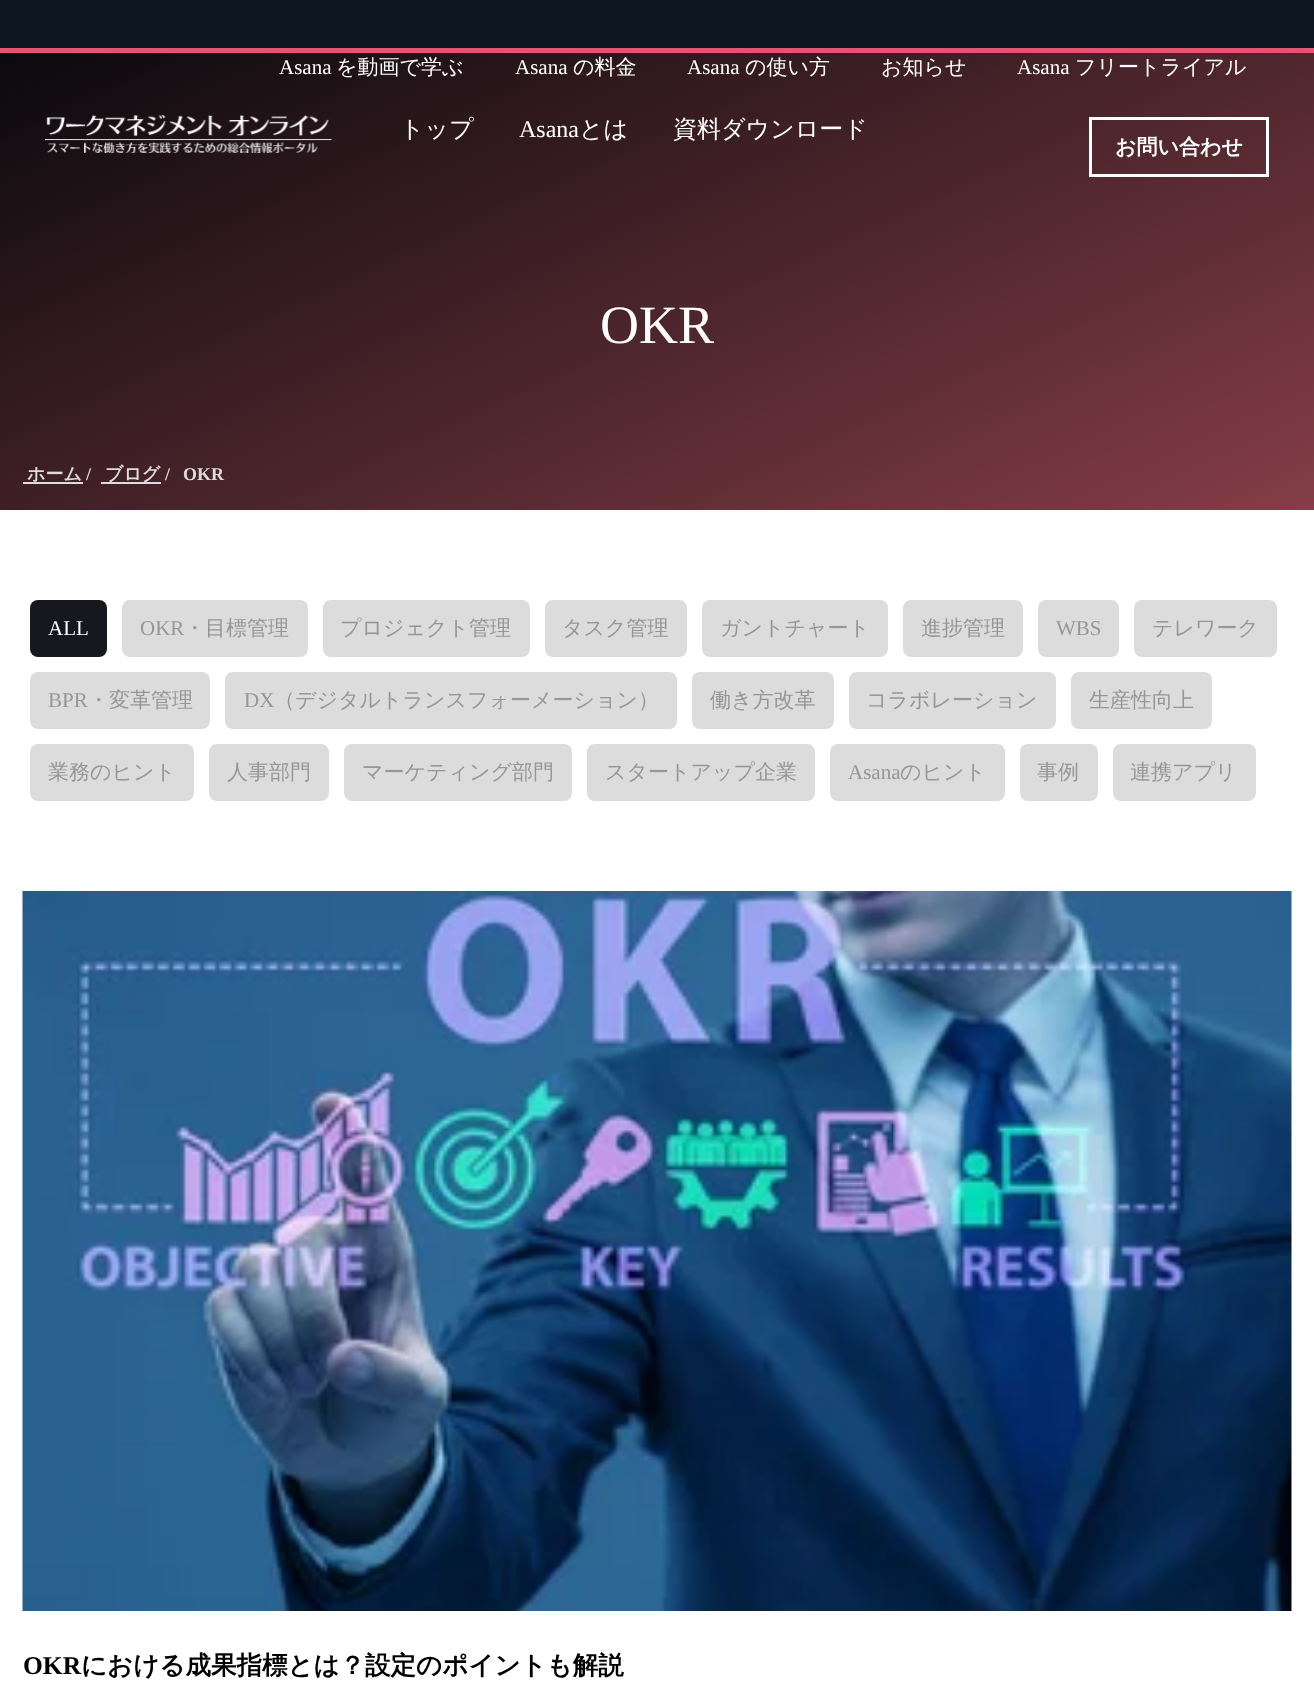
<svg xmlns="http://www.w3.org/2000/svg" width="1314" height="1692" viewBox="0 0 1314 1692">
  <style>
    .t1 { font: 21px Liberation Serif; fill: #fff; }
    .t2 { font: 500 21px WenQuanYi Zen Hei; fill: #fff; }
    .t3 { font: 500 24px WenQuanYi Zen Hei; fill: #fff; }
    .t4 { font: 24px Liberation Serif; fill: #fff; }
    .t5 { font: bold 21px WenQuanYi Zen Hei; fill: #fff; }
    .t6 { font: 54px Liberation Serif; fill: #fff; }
    .t7 { font: bold 18px WenQuanYi Zen Hei; fill: #ddd; }
    .t8 { font: bold 18px Liberation Serif; fill: #ddd; }
    .t9 { font: 21px Liberation Serif; fill: #969696; }
    .t10 { font: 500 21px WenQuanYi Zen Hei; fill: #969696; }
    .t11 { font: bold 25.5px Liberation Serif; fill: #000; }
    .t12 { font: bold 25.5px WenQuanYi Zen Hei; fill: #000; }
  </style>
  <defs>
    <linearGradient id="g1" gradientUnits="userSpaceOnUse" x1="442" y1="-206" x2="872" y2="716"><stop offset="0" stop-color="#04070a"/><stop offset="1" stop-color="#853d47"/></linearGradient>
  </defs>
  <rect width="100%" height="100%" fill="#fff"/>
  <rect x="0" y="0" width="1314" height="48" fill="#0d1722"/>
  <rect x="0" y="48" width="1314" height="5" fill="#e65373"/>
  <rect x="0" y="53" width="1314" height="457" fill="url(#g1)"/>
  <text x="279" y="74" class="t1">Asana</text>
  <text x="336" y="74" class="t2">を動画で学ぶ</text>
  <text x="515" y="74" class="t1">Asana</text>
  <text x="573" y="74" class="t2">の料金</text>
  <text x="687" y="74" class="t1">Asana</text>
  <text x="745" y="74" class="t2">の使い方</text>
  <text x="881" y="74" class="t2">お知らせ</text>
  <text x="1017" y="74" class="t1">Asana</text>
  <text x="1075" y="74" class="t2">フリートライアル</text>
  <image x="45" y="114" width="287" height="39" href="images/1.png"/>
  <text x="400" y="137" class="t3">トップ</text>
  <text x="519" y="137" class="t4">Asana</text>
  <text x="579" y="137" class="t3">とは</text>
  <text x="673" y="137" class="t3">資料ダウンロード</text>
  <rect x="1090.5" y="118.5" width="177" height="57" fill="none" stroke="#fff" stroke-width="3"/>
  <text x="1115" y="154" class="t5">お問い合わせ</text>
  <text x="600" y="343" class="t6">OKR</text>
  <text x="27" y="480" class="t7">ホーム</text>
  <rect x="23" y="482" width="60" height="2" fill="#ddd"/>
  <text x="86" y="480" class="t8">/</text>
  <rect x="101" y="482" width="60" height="2" fill="#ddd"/>
  <text x="105" y="480" class="t7">ブログ</text>
  <text x="165" y="480" class="t8">/</text>
  <text x="183" y="480" class="t8">OKR</text>
  <rect x="30" y="600" width="77" height="57" rx="8" fill="#17171e"/>
  <text x="48" y="635" class="t1">ALL</text>
  <rect x="122" y="600" width="186" height="57" rx="8" fill="#dcdcdc"/>
  <text x="140" y="635" class="t9">OKR</text>
  <text x="184" y="635" class="t10">・目標管理</text>
  <rect x="323" y="600" width="207" height="57" rx="8" fill="#dcdcdc"/>
  <text x="340" y="635" class="t10">プロジェクト管理</text>
  <rect x="545" y="600" width="142" height="57" rx="8" fill="#dcdcdc"/>
  <text x="562" y="635" class="t10">タスク管理</text>
  <rect x="702" y="600" width="186" height="57" rx="8" fill="#dcdcdc"/>
  <text x="720" y="635" class="t10">ガントチャート</text>
  <rect x="903" y="600" width="120" height="57" rx="8" fill="#dcdcdc"/>
  <text x="921" y="635" class="t10">進捗管理</text>
  <rect x="1038" y="600" width="81" height="57" rx="8" fill="#dcdcdc"/>
  <text x="1056" y="635" class="t9">WBS</text>
  <rect x="1134" y="600" width="143" height="57" rx="8" fill="#dcdcdc"/>
  <text x="1152" y="635" class="t10">テレワーク</text>
  <rect x="30" y="672" width="180" height="57" rx="8" fill="#dcdcdc"/>
  <text x="48" y="707" class="t9">BPR</text>
  <text x="88" y="707" class="t10">・変革管理</text>
  <rect x="225" y="672" width="452" height="57" rx="8" fill="#dcdcdc"/>
  <text x="244" y="707" class="t9">DX</text>
  <text x="274" y="707" class="t10">（デジタルトランスフォーメーション）</text>
  <rect x="692" y="672" width="142" height="57" rx="8" fill="#dcdcdc"/>
  <text x="710" y="707" class="t10">働き方改革</text>
  <rect x="849" y="672" width="207" height="57" rx="8" fill="#dcdcdc"/>
  <text x="866" y="707" class="t10">コラボレーション</text>
  <rect x="1071" y="672" width="141" height="57" rx="8" fill="#dcdcdc"/>
  <text x="1089" y="707" class="t10">生産性向上</text>
  <rect x="30" y="744" width="164" height="57" rx="8" fill="#dcdcdc"/>
  <text x="48" y="779" class="t10">業務のヒント</text>
  <rect x="209" y="744" width="120" height="57" rx="8" fill="#dcdcdc"/>
  <text x="227" y="779" class="t10">人事部門</text>
  <rect x="344" y="744" width="228" height="57" rx="8" fill="#dcdcdc"/>
  <text x="362" y="779" class="t10">マーケティング部門</text>
  <rect x="587" y="744" width="228" height="57" rx="8" fill="#dcdcdc"/>
  <text x="605" y="779" class="t10">スタートアップ企業</text>
  <rect x="830" y="744" width="175" height="57" rx="8" fill="#dcdcdc"/>
  <text x="848" y="779" class="t9">Asana</text>
  <text x="900" y="779" class="t10">のヒント</text>
  <rect x="1020" y="744" width="78" height="57" rx="8" fill="#dcdcdc"/>
  <text x="1037" y="779" class="t10">事例</text>
  <rect x="1113" y="744" width="143" height="57" rx="8" fill="#dcdcdc"/>
  <text x="1130" y="779" class="t10">連携アプリ</text>
  <image x="22" y="891" width="1270" height="720" href="images/2.png"/>
  <text x="23" y="1674" class="t11">OKR</text>
  <text x="81" y="1674" class="t12">における成果指標とは？設定のポイントも解説</text>
</svg>
